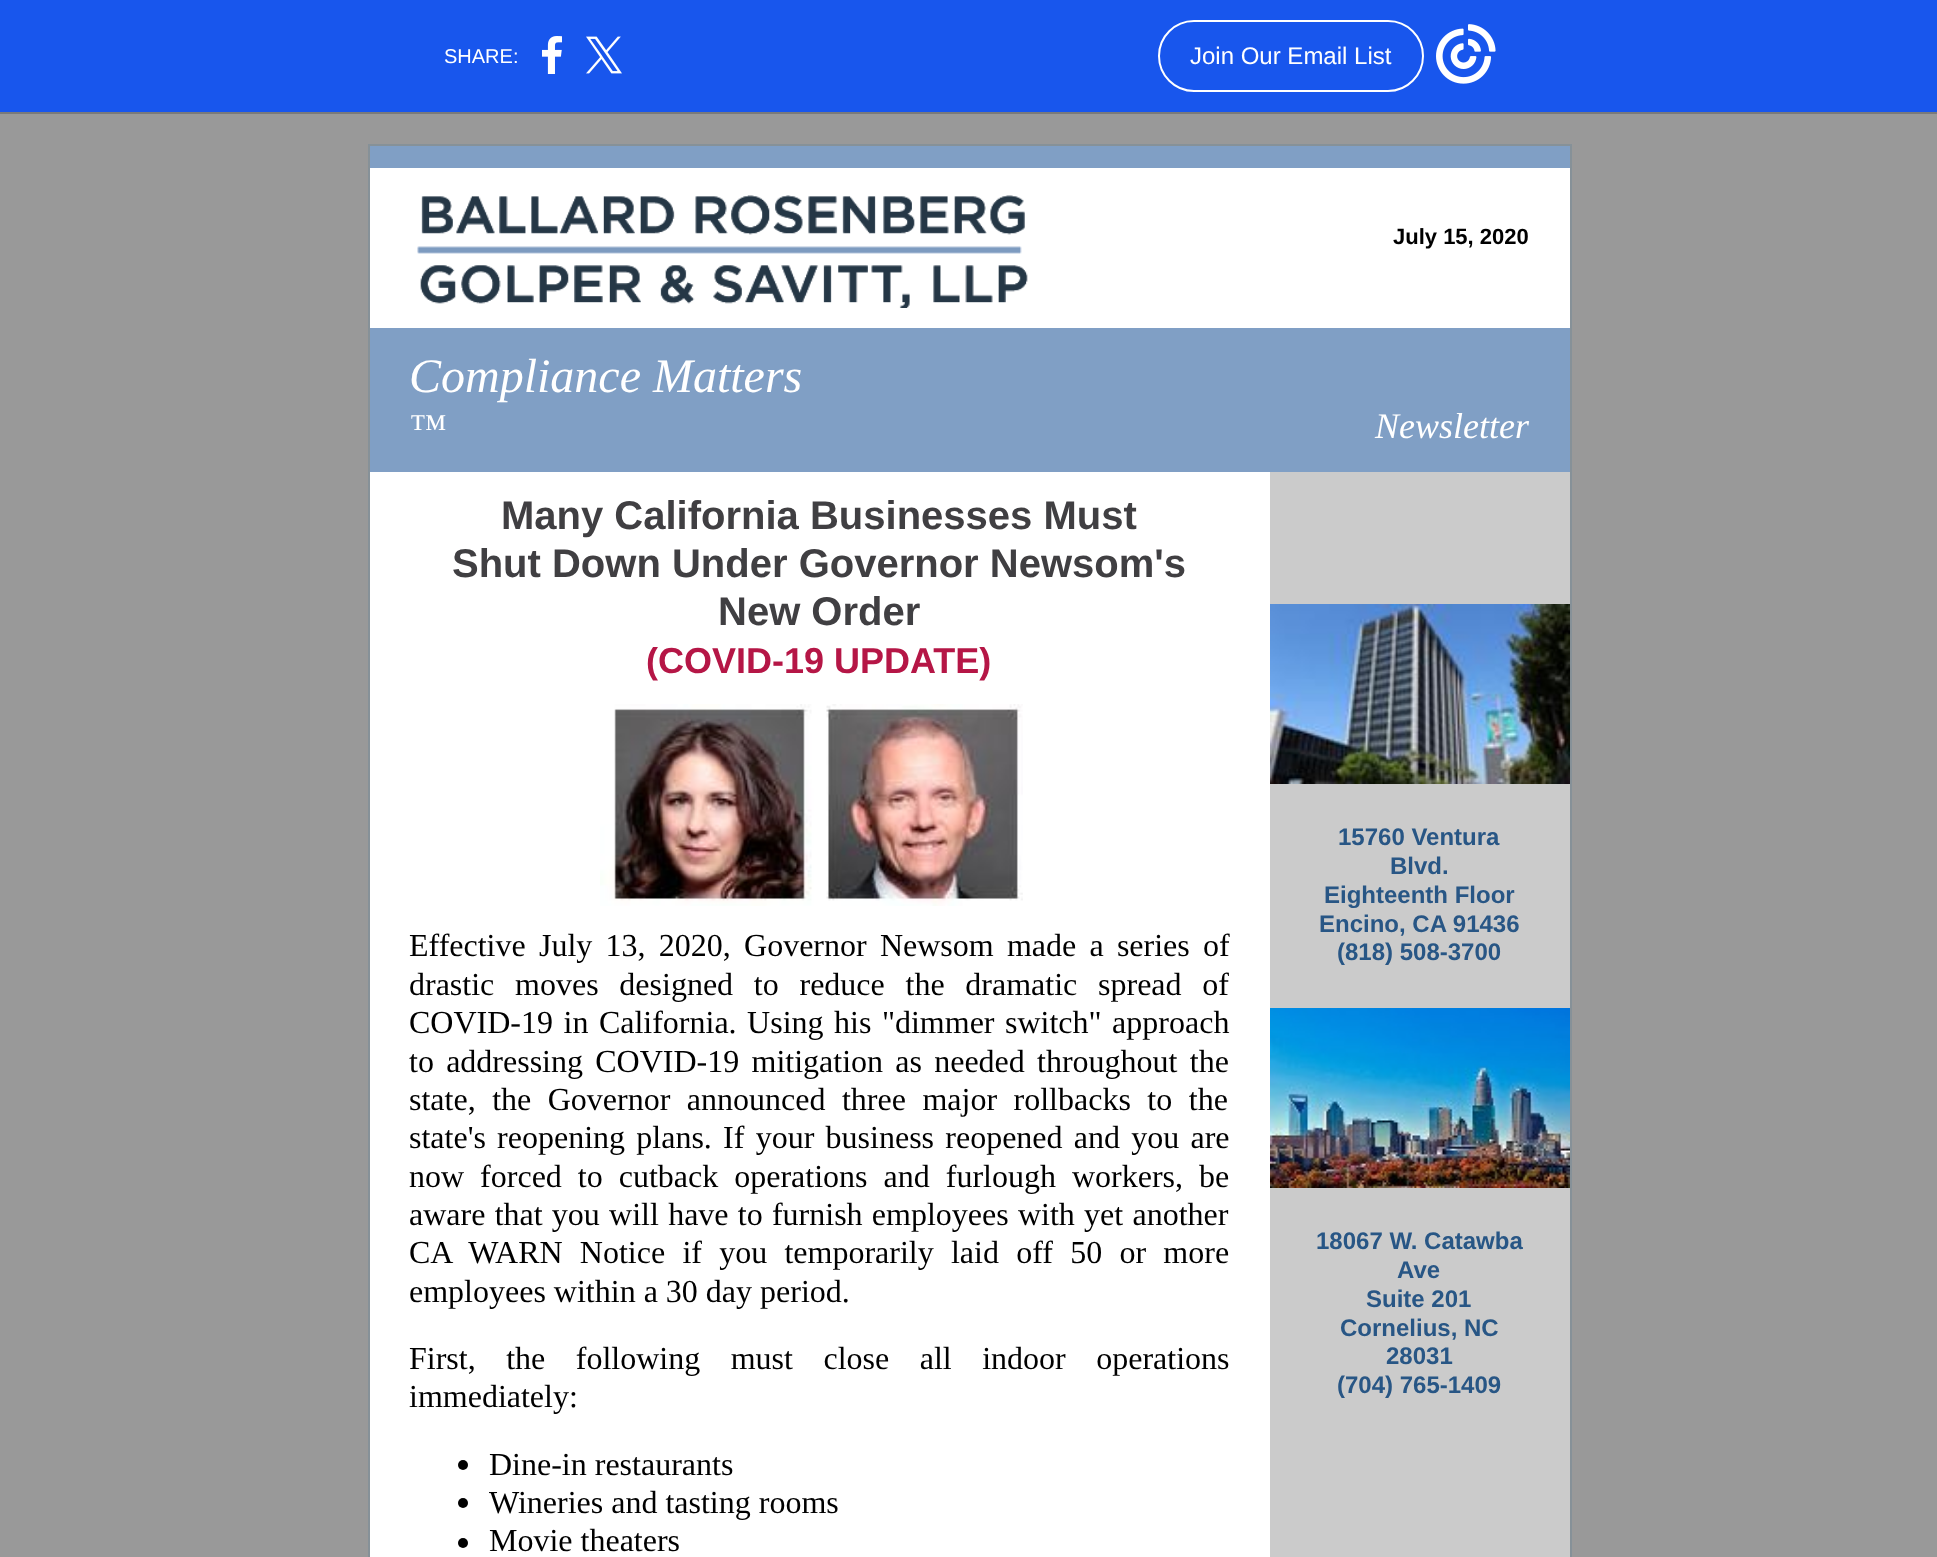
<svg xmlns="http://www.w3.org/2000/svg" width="1937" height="1557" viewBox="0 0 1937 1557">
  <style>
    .t1 { font: 20px Liberation Sans; fill: #fff; }
    .t2 { font: 24px Liberation Sans; fill: #fff; }
    .t3 { font: bold 22px Liberation Sans; fill: #000; }
    .t4 { font: italic 48px Liberation Serif; fill: #fff; }
    .t5 { font: italic 38px Liberation Serif; fill: #fff; }
    .t6 { font: italic 36px Liberation Serif; fill: #fff; }
    .t7 { font: bold 40px Liberation Sans; fill: #403f42; }
    .t8 { font: bold 36px Liberation Sans; fill: #b51646; }
    .t9 { font: 32px Liberation Serif; fill: #000; }
    .t10 { font: bold 24px Liberation Sans; fill: #285685; }
  </style>
  <rect width="100%" height="100%" fill="#999"/>
  <rect x="0" y="0" width="1937" height="112" fill="#1856ed"/>
  <rect x="0" y="112" width="1937" height="2" fill="#7a7a7a"/>
  <text x="444" y="63" class="t1">SHARE:</text>
  <image x="542" y="36" width="20" height="38" href="images/1.png"/>
  <image x="586" y="36" width="36" height="38" href="images/2.png"/>
  <rect x="1159" y="21" width="264" height="70" rx="35" fill="none" stroke="#fff" stroke-width="2"/>
  <text x="1190" y="64" class="t2">Join Our Email List</text>
  <image x="1436" y="24" width="60" height="60" href="images/3.png"/>
  <rect x="368" y="144" width="1204" height="1413" fill="#869198"/>
  <rect x="370" y="168" width="1200" height="1389" fill="#fff"/>
  <rect x="370" y="146" width="1200" height="22" fill="#809fc5"/>
  <image x="417" y="195" width="611" height="113" href="images/4.png"/>
  <text x="1393" y="244" class="t3">July 15, 2020</text>
  <rect x="370" y="328" width="1200" height="144" fill="#809fc5"/>
  <text x="409" y="392" class="t4">Compliance Matters</text>
  <text x="409" y="440" class="t5">™</text>
  <text x="1375" y="438" class="t6">Newsletter</text>
  <text x="501" y="529" class="t7">Many California Businesses Must</text>
  <text x="452" y="577" class="t7">Shut Down Under Governor Newsom's</text>
  <text x="718" y="625" class="t7">New Order</text>
  <text x="646" y="673" class="t8">(COVID-19 UPDATE)</text>
  <image x="600" y="704" width="423" height="202" href="images/5.png"/>
  <text x="409" y="956" word-spacing="5.25" class="t9">Effective July 13, 2020, Governor Newsom made a series of</text>
  <text x="409" y="995" word-spacing="12.75" class="t9">drastic moves designed to reduce the dramatic spread of</text>
  <text x="409" y="1033" word-spacing="2.5" class="t9">COVID-19 in California. Using his "dimmer switch" approach</text>
  <text x="409" y="1072" word-spacing="4.25" class="t9">to addressing COVID-19 mitigation as needed throughout the</text>
  <text x="409" y="1110" word-spacing="8.5" class="t9">state, the Governor announced three major rollbacks to the</text>
  <text x="409" y="1148" word-spacing="3.25" class="t9">state's reopening plans. If your business reopened and you are</text>
  <text x="409" y="1187" word-spacing="8" class="t9">now forced to cutback operations and furlough workers, be</text>
  <text x="409" y="1225" word-spacing="1.25" class="t9">aware that you will have to furnish employees with yet another</text>
  <text x="409" y="1263" word-spacing="9.25" class="t9">CA WARN Notice if you temporarily laid off 50 or more</text>
  <text x="409" y="1302" class="t9">employees within a 30 day period.</text>
  <text x="409" y="1369" word-spacing="22.5" class="t9">First, the following must close all indoor operations</text>
  <text x="409" y="1407" class="t9">immediately:</text>
  <circle cx="463" cy="1465" r="5" fill="#000"/>
  <text x="489" y="1475" class="t9">Dine-in restaurants</text>
  <circle cx="463" cy="1503" r="5" fill="#000"/>
  <text x="489" y="1513" class="t9">Wineries and tasting rooms</text>
  <circle cx="463" cy="1543" r="5" fill="#000"/>
  <text x="489" y="1551" class="t9">Movie theaters</text>
  <rect x="1270" y="472" width="300" height="1085" fill="#cbcbcb"/>
  <image x="1270" y="604" width="300" height="180" href="images/6.png"/>
  <text x="1338" y="845" class="t10">15760 Ventura</text>
  <text x="1390" y="874" class="t10">Blvd.</text>
  <text x="1324" y="903" class="t10">Eighteenth Floor</text>
  <text x="1319" y="932" class="t10">Encino, CA 91436</text>
  <text x="1337" y="960" class="t10">(818) 508-3700</text>
  <image x="1270" y="1008" width="300" height="180" href="images/7.png"/>
  <text x="1316" y="1249" class="t10">18067 W. Catawba</text>
  <text x="1397" y="1278" class="t10">Ave</text>
  <text x="1366" y="1307" class="t10">Suite 201</text>
  <text x="1340" y="1336" class="t10">Cornelius, NC</text>
  <text x="1386" y="1364" class="t10">28031</text>
  <text x="1337" y="1393" class="t10">(704) 765-1409</text>
</svg>
